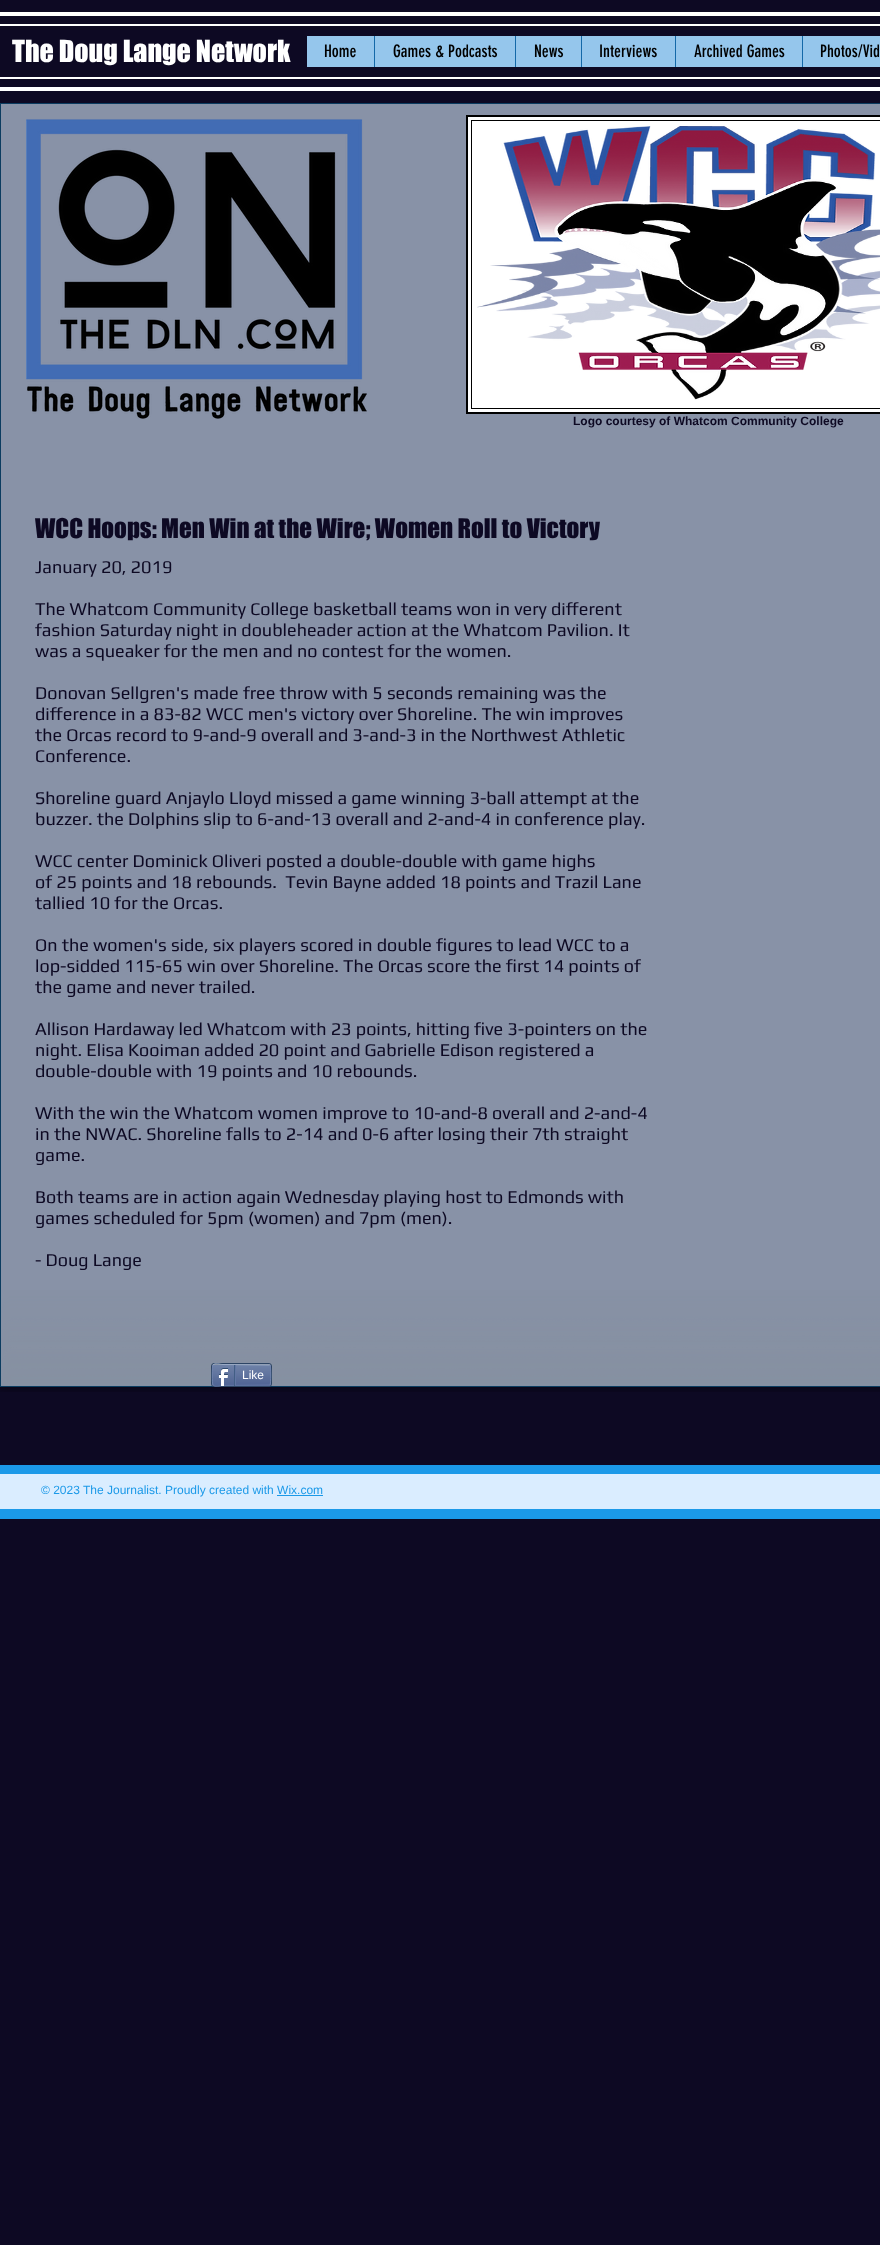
<svg xmlns="http://www.w3.org/2000/svg" width="880" height="2245" viewBox="0 0 880 2245">
  <style>
    .t1 { font: 28px 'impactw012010'; fill: #fff; }
    .t2 { font: 17px 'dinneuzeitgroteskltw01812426'; fill: #000; }
    .t3 { font: bold 12px Liberation Sans; fill: #0d0923; }
    .t4 { font: 25px 'impactw012010'; fill: #0d0923; }
    .t5 { font: 18px Play; fill: #0d0923; }
    .t6 { font: 12px Liberation Sans; fill: #fff; }
    .t7 { font: 12px Liberation Sans; fill: #1b99e8; }
  </style>
  <rect width="100%" height="100%" fill="#0d0923"/>
  <rect x="0" y="12" width="880" height="4" fill="#fff"/>
  <rect x="0" y="87" width="880" height="4" fill="#fff"/>
  <rect x="0" y="24" width="880" height="2" fill="#fff"/>
  <rect x="0" y="77" width="880" height="2" fill="#fff"/>
  <text x="12" y="62" class="t1">The Doug Lange Network</text>
  <rect x="307" y="36" width="573" height="31" fill="#95c6ec"/>
  <text x="324" y="57" class="t2">Home</text>
  <rect x="374" y="36" width="1" height="31" fill="#1468a8"/>
  <text x="393" y="57" class="t2">Games &amp; Podcasts</text>
  <rect x="515" y="36" width="1" height="31" fill="#1468a8"/>
  <text x="534" y="57" class="t2">News</text>
  <rect x="581" y="36" width="1" height="31" fill="#1468a8"/>
  <text x="599" y="57" class="t2">Interviews</text>
  <rect x="675" y="36" width="1" height="31" fill="#1468a8"/>
  <text x="694" y="57" class="t2">Archived Games</text>
  <rect x="802" y="36" width="1" height="31" fill="#1468a8"/>
  <text x="820" y="57" class="t2">Photos/Vid</text>
  <rect x="1" y="104" width="879" height="1282" fill="#8892a7"/>
  <image x="0" y="1290" width="35" height="102" href="images/2.png"/>
  <image x="35" y="1290" width="845" height="102" href="images/3.png"/>
  <rect x="0.5" y="103.5" width="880" height="1283" fill="none" stroke="#0c3c60"/>
  <image x="26" y="119" width="341" height="300" href="images/1.png"/>
  <rect x="467" y="116" width="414" height="297" fill="#fff" stroke="#000" stroke-width="2"/>
  <image x="477" y="126" width="403" height="274" href="images/4.png"/>
  <rect x="471.5" y="120.5" width="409" height="288" fill="none" stroke="#000"/>
  <text x="573" y="425" class="t3">Logo courtesy of Whatcom Community College</text>
  <text x="35" y="538" class="t4">WCC Hoops: Men Win at the Wire; Women Roll to Victory</text>
  <text x="35" y="573" class="t5">January 20, 2019</text>
  <text x="35" y="615" class="t5">The Whatcom Community College basketball teams won in very different</text>
  <text x="35" y="636" class="t5">fashion Saturday night in doubleheader action at the Whatcom Pavilion. It</text>
  <text x="35" y="657" class="t5">was a squeaker for the men and no contest for the women.</text>
  <text x="35" y="699" class="t5">Donovan Sellgren's made free throw with 5 seconds remaining was the</text>
  <text x="35" y="720" class="t5">difference in a 83-82 WCC men's victory over Shoreline. The win improves</text>
  <text x="35" y="741" class="t5">the Orcas record to 9-and-9 overall and 3-and-3 in the Northwest Athletic</text>
  <text x="35" y="762" class="t5">Conference.</text>
  <text x="35" y="804" class="t5">Shoreline guard Anjaylo Lloyd missed a game winning 3-ball attempt at the</text>
  <text x="35" y="825" class="t5">buzzer. the Dolphins slip to 6-and-13 overall and 2-and-4 in conference play.</text>
  <text x="35" y="867" class="t5">WCC center Dominick Oliveri posted a double-double with game highs</text>
  <text x="35" y="888" class="t5" xml:space="preserve">of 25 points and 18 rebounds.  Tevin Bayne added 18 points and Trazil Lane</text>
  <text x="35" y="909" class="t5">tallied 10 for the Orcas.</text>
  <text x="35" y="951" class="t5">On the women's side, six players scored in double figures to lead WCC to a</text>
  <text x="35" y="972" class="t5">lop-sidded 115-65 win over Shoreline. The Orcas score the first 14 points of</text>
  <text x="35" y="993" class="t5">the game and never trailed.</text>
  <text x="35" y="1035" class="t5">Allison Hardaway led Whatcom with 23 points, hitting five 3-pointers on the</text>
  <text x="35" y="1056" class="t5">night. Elisa Kooiman added 20 point and Gabrielle Edison registered a</text>
  <text x="35" y="1077" class="t5">double-double with 19 points and 10 rebounds.</text>
  <text x="35" y="1119" class="t5">With the win the Whatcom women improve to 10-and-8 overall and 2-and-4</text>
  <text x="35" y="1140" class="t5">in the NWAC. Shoreline falls to 2-14 and 0-6 after losing their 7th straight</text>
  <text x="35" y="1161" class="t5">game.</text>
  <text x="35" y="1203" class="t5">Both teams are in action again Wednesday playing host to Edmonds with</text>
  <text x="35" y="1224" class="t5">games scheduled for 5pm (women) and 7pm (men).</text>
  <text x="35" y="1266" class="t5">- Doug Lange</text>
  <rect x="211.5" y="1363.5" width="60" height="23" rx="2.5" fill="none" stroke="#2d4565"/>
  <image x="212" y="1365" width="59" height="21" href="images/5.png"/>
  <path d="M213 1365C215.5 1362.5 219.5 1364.5 223 1364.5L270 1365" fill="none" stroke="#9aabc6"/>
  <path d="M270 1365C271 1365.5 271 1384.5 270 1385" fill="none" stroke="#6f83ad"/>
  <path d="M270 1385L223 1385.5C219.5 1385.5 215.5 1387.5 213 1385" fill="none" stroke="#6176a3"/>
  <path d="M213 1385C212 1384.5 212 1365.5 213 1365" fill="none" stroke="#6f83ad"/>
  <image x="218" y="1368" width="10" height="18" href="images/6.png"/>
  <rect x="234" y="1365" width="1" height="21" fill="#425e85"/>
  <text x="242" y="1379" class="t6">Like</text>
  <rect x="235" y="1365" width="1" height="20" fill="#6176a3"/>
  <rect x="0" y="1465" width="880" height="54" fill="#1b99e8"/>
  <rect x="0" y="1474" width="880" height="35" fill="#daedff"/>
  <text x="41" y="1494" class="t7">© 2023 The Journalist. Proudly created with Wix.com</text>
  <rect x="277" y="1495" width="46" height="1" fill="#1b99e8"/>
</svg>
